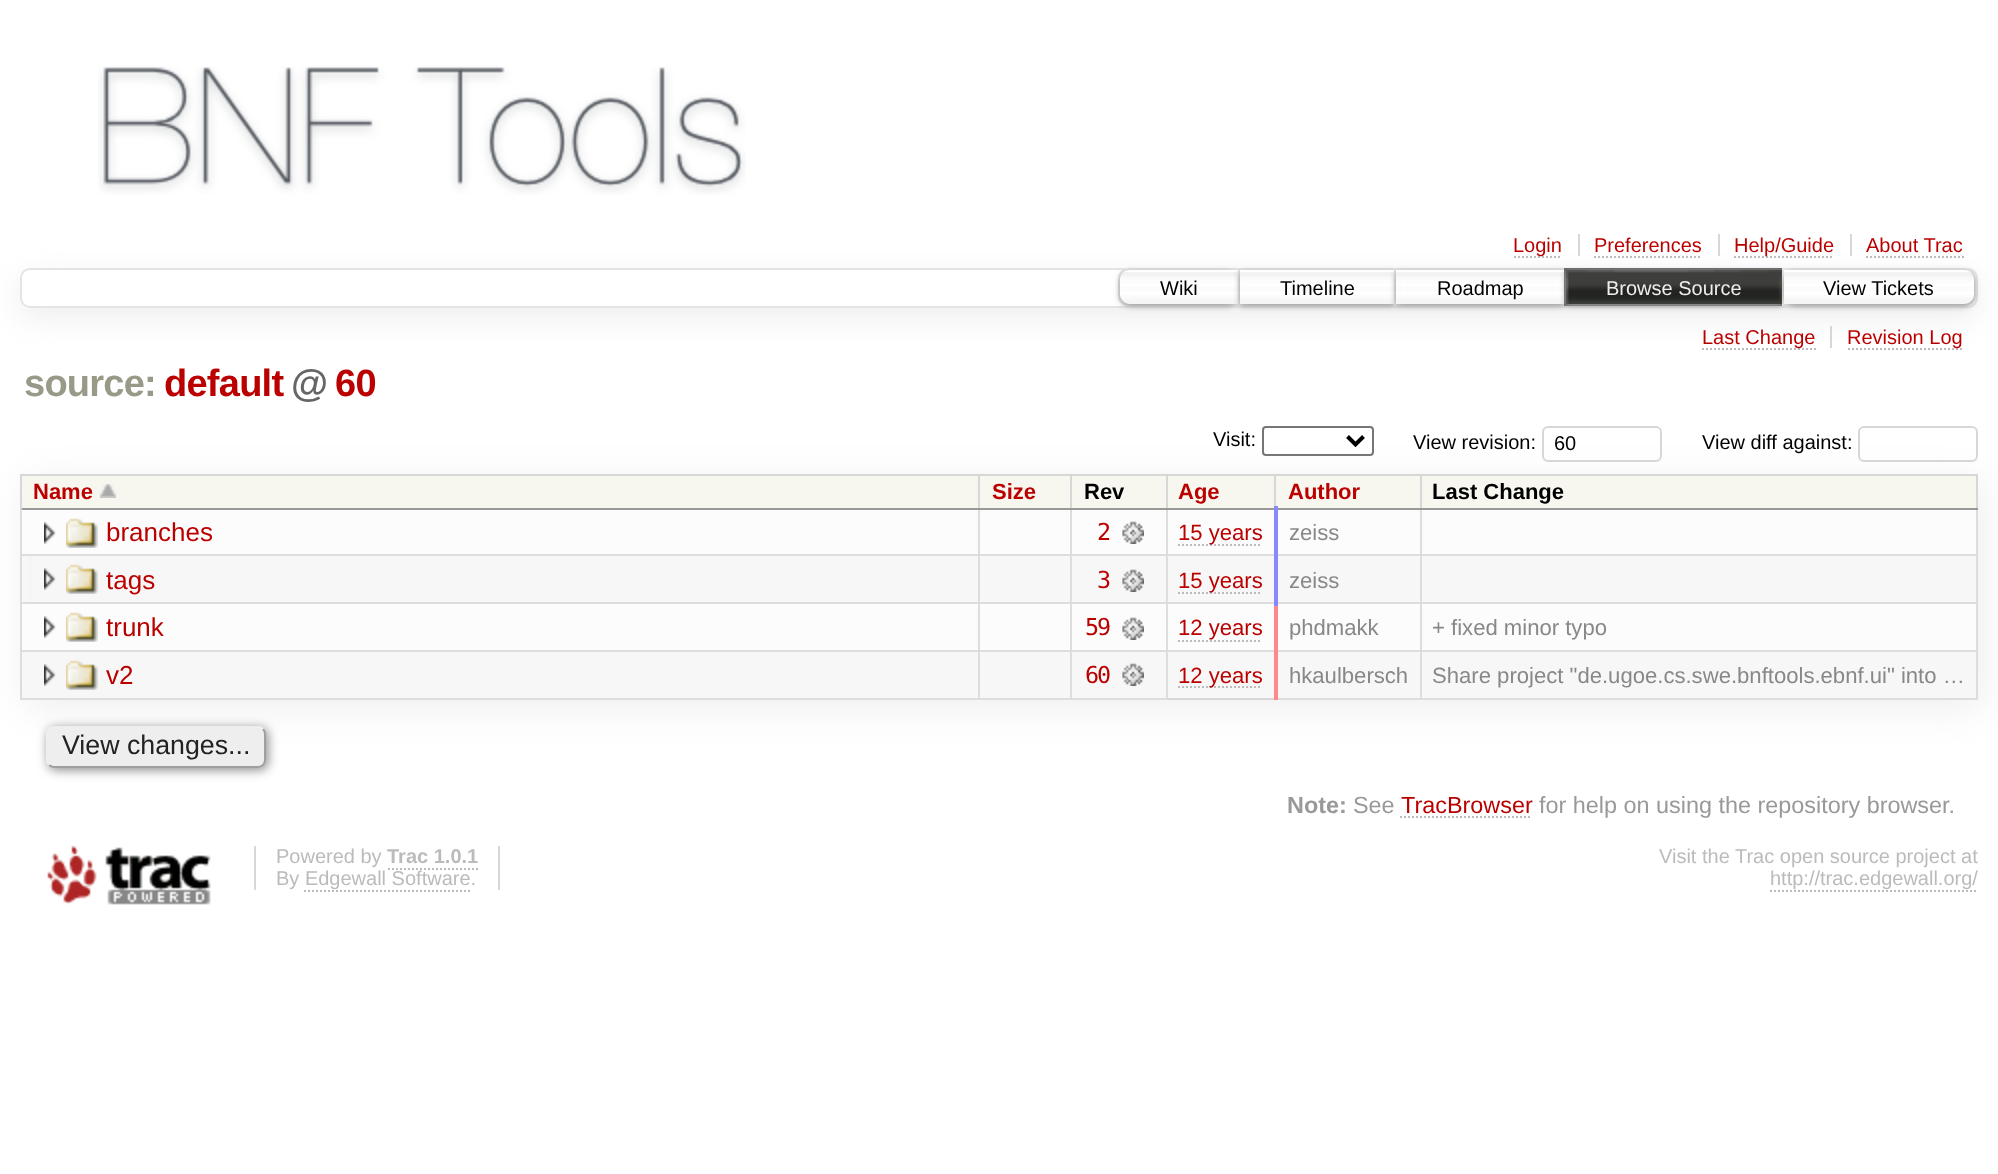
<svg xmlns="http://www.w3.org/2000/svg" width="1998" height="1174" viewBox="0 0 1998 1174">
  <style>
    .t1 { font: 20px Liberation Sans; fill: #b00; }
    .t2 { font: 20px Liberation Sans; fill: #000; }
    .t3 { font: 20px Liberation Sans; fill: #eee; }
    .t4 { font: bold 38px Liberation Sans; letter-spacing: -0.75px; fill: #998; }
    .t5 { font: bold 38px Liberation Sans; letter-spacing: -0.75px; fill: #b00; }
    .t6 { font: bold 38px Liberation Sans; letter-spacing: -0.75px; fill: #666; }
    .t7 { font: bold 22px Liberation Sans; fill: #b00; }
    .t8 { font: bold 22px Liberation Sans; fill: #000; }
    .t9 { font: 26px Liberation Sans; fill: #b00; }
    .t10 { font: 23.4px DejaVu Sans Mono; letter-spacing: -2px; fill: #b00; }
    .t11 { font: 22.1px Liberation Sans; fill: #b00; }
    .t12 { font: 22.1px Liberation Sans; fill: #888; }
    .t13 { font: 26.75px Liberation Sans; fill: #222; }
    .t14 { font: bold 23.4px Liberation Sans; fill: #999; }
    .t15 { font: 23.4px Liberation Sans; fill: #999; }
    .t16 { font: 23.4px Liberation Sans; fill: #b00; }
    .t17 { font: 20px Liberation Sans; fill: #bbb; }
    .t18 { font: bold 20px Liberation Sans; fill: #bbb; }
  </style>
  <defs>
    <clipPath id="clip1"><path d="M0 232H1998V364H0ZM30 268H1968C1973.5 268 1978 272.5 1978 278V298C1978 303.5 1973.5 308 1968 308H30C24.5 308 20 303.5 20 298V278C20 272.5 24.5 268 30 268Z" clip-rule="evenodd"/></clipPath>
    <clipPath id="clip2"><path d="M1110 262H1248V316H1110ZM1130 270H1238V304H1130C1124.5 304 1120 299.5 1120 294V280C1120 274.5 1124.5 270 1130 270Z" clip-rule="evenodd"/></clipPath>
    <clipPath id="clip3"><path d="M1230 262H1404V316H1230ZM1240 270H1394V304H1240Z" clip-rule="evenodd"/></clipPath>
    <clipPath id="clip4"><path d="M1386 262H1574V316H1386ZM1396 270H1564V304H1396Z" clip-rule="evenodd"/></clipPath>
    <clipPath id="clip5"><path d="M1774 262H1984V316H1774ZM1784 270H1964C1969.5 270 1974 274.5 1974 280V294C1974 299.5 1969.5 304 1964 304H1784Z" clip-rule="evenodd"/></clipPath>
  </defs>
  <rect width="100%" height="100%" fill="#fff"/>
  <image x="98" y="66" width="648" height="129" href="images/1.png"/>
  <g clip-path="url(#clip1)">
    <rect x="20" y="278" width="1958" height="40" rx="10" fill="#eee" filter="blur(15px)"/>
  </g>
  <rect x="1578" y="234" width="2" height="22" fill="#d7d7d7"/>
  <path d="M1514 257H1562" fill="none" stroke="#bbb" stroke-width="2" stroke-dasharray="2 2"/>
  <text x="1513" y="252" class="t1">Login</text>
  <rect x="1718" y="234" width="2" height="22" fill="#d7d7d7"/>
  <text x="1594" y="252" class="t1">Preferences</text>
  <path d="M1594 257H1702" fill="none" stroke="#bbb" stroke-width="2" stroke-dasharray="2 2"/>
  <rect x="1850" y="234" width="2" height="22" fill="#d7d7d7"/>
  <path d="M1734 257H1834" fill="none" stroke="#bbb" stroke-width="2" stroke-dasharray="2 2"/>
  <text x="1734" y="252" class="t1">Help/Guide</text>
  <text x="1866" y="252" class="t1">About Trac</text>
  <path d="M1866 257H1964" fill="none" stroke="#bbb" stroke-width="2" stroke-dasharray="2 2"/>
  <rect x="21" y="269" width="1956" height="38" rx="9" fill="none" stroke="#e4e4e4" stroke-width="2"/>
  <path d="M1128 268H1240V306H1128C1122.5 306 1118 301.5 1118 296V278C1118 272.5 1122.5 268 1128 268Z" fill="#fff"/>
  <image x="1118" y="272" width="120" height="34" href="images/2.png"/>
  <path d="M1128 269H1239V305H1128C1123 305 1119 301 1119 296V278C1119 273 1123 269 1128 269Z" fill="none" stroke="#e4e4e4" stroke-width="2"/>
  <g clip-path="url(#clip2)">
    <rect x="1120" y="272" width="118" height="34" rx="10" fill="#999" filter="blur(3px)"/>
  </g>
  <text x="1160" y="295" class="t2">Wiki</text>
  <rect x="1240" y="273" width="4" height="31" fill="#fff"/>
  <image x="1240" y="272" width="154" height="32" href="images/3.png"/>
  <rect x="1239" y="269" width="156" height="36" fill="none" stroke="#e4e4e4" stroke-width="2"/>
  <g clip-path="url(#clip3)">
    <rect x="1240" y="272" width="154" height="34" fill="#999" filter="blur(3px)"/>
  </g>
  <text x="1280" y="295" class="t2">Timeline</text>
  <rect x="1396" y="270" width="4" height="34" fill="#fff"/>
  <image x="1396" y="272" width="168" height="32" href="images/4.png"/>
  <rect x="1395" y="269" width="170" height="36" fill="none" stroke="#e4e4e4" stroke-width="2"/>
  <g clip-path="url(#clip4)">
    <rect x="1396" y="272" width="168" height="34" fill="#999" filter="blur(3px)"/>
  </g>
  <text x="1437" y="295" class="t2">Roadmap</text>
  <rect x="1565" y="269" width="218" height="36" fill="none" stroke="#666" stroke-width="2"/>
  <rect x="1566" y="272" width="216" height="34" fill="#999" filter="blur(3px)"/>
  <rect x="1566" y="270" width="216" height="34" fill="#000"/>
  <image x="1566" y="270" width="216" height="34" href="images/5.png"/>
  <text x="1606" y="295" class="t3">Browse Source</text>
  <path d="M1782 268H1966C1971.5 268 1976 272.5 1976 278V296C1976 301.5 1971.5 306 1966 306H1782Z" fill="#fff"/>
  <image x="1784" y="272" width="192" height="34" href="images/6.png"/>
  <path d="M1783 269H1966C1971 269 1975 273 1975 278V296C1975 301 1971 305 1966 305H1783Z" fill="none" stroke="#e4e4e4" stroke-width="2"/>
  <g clip-path="url(#clip5)">
    <rect x="1784" y="272" width="190" height="34" rx="10" fill="#999" filter="blur(3px)"/>
  </g>
  <text x="1823" y="295" class="t2">View Tickets</text>
  <rect x="1830" y="326" width="2" height="22" fill="#d7d7d7"/>
  <path d="M1702 349H1816" fill="none" stroke="#bbb" stroke-width="2" stroke-dasharray="2 2"/>
  <text x="1702" y="344" class="t1">Last Change</text>
  <path d="M1848 349H1964" fill="none" stroke="#bbb" stroke-width="2" stroke-dasharray="2 2"/>
  <text x="1847" y="344" class="t1">Revision Log</text>
  <text x="24" y="396" class="t4">source:</text>
  <text x="164" y="396" class="t5">default</text>
  <text x="291" y="396" class="t6">@</text>
  <text x="335" y="396" class="t5">60</text>
  <rect x="26" y="482" width="1958" height="226" fill="#eee" filter="blur(19.5px)"/>
  <text x="1213" y="446" class="t2">Visit:</text>
  <rect x="1263" y="427" width="110" height="28" rx="3" fill="none" stroke="#767676" stroke-width="2"/>
  <path d="M1347.5 436.5L1355.5 444.5L1363.5 436.5" fill="none" stroke="#000" stroke-width="4"/>
  <text x="1413" y="449" class="t2">View revision:</text>
  <rect x="1543" y="427" width="118" height="34" rx="5" fill="none" stroke="#d7d7d7" stroke-width="2"/>
  <text x="1554" y="450" class="t2">60</text>
  <text x="1702" y="449" class="t2">View diff against:</text>
  <rect x="1859" y="427" width="118" height="34" rx="5" fill="none" stroke="#d7d7d7" stroke-width="2"/>
  <rect x="1168" y="698" width="106" height="2" fill="#d7d7d7"/>
  <rect x="22" y="476" width="1954" height="32" fill="#f7f7f0"/>
  <rect x="1420" y="474" width="558" height="2" fill="#d7d7d7"/>
  <rect x="20" y="554" width="1958" height="2" fill="#ddd"/>
  <rect x="20" y="602" width="1958" height="2" fill="#ddd"/>
  <rect x="20" y="650" width="1958" height="2" fill="#ddd"/>
  <rect x="1976" y="508" width="2" height="192" fill="#ddd"/>
  <rect x="1976" y="474" width="2" height="36" fill="#d7d7d7"/>
  <rect x="22" y="510" width="1954" height="44" fill="#fcfcfc"/>
  <rect x="32" y="556" width="1944" height="46" fill="#f7f7f7"/>
  <rect x="22" y="604" width="1954" height="46" fill="#fcfcfc"/>
  <rect x="22" y="652" width="1954" height="46" fill="#f7f7f7"/>
  <rect x="1420" y="698" width="558" height="2" fill="#ddd"/>
  <rect x="1420" y="508" width="2" height="192" fill="#ddd"/>
  <rect x="1420" y="508" width="558" height="2" fill="#999"/>
  <rect x="1420" y="474" width="2" height="36" fill="#d7d7d7"/>
  <rect x="1274" y="474" width="148" height="2" fill="#d7d7d7"/>
  <rect x="1274" y="508" width="148" height="2" fill="#999"/>
  <rect x="1274" y="474" width="2" height="36" fill="#d7d7d7"/>
  <rect x="1166" y="474" width="110" height="2" fill="#d7d7d7"/>
  <rect x="1166" y="508" width="2" height="192" fill="#ddd"/>
  <rect x="1166" y="508" width="110" height="2" fill="#999"/>
  <rect x="1166" y="474" width="2" height="36" fill="#d7d7d7"/>
  <rect x="1070" y="474" width="98" height="2" fill="#d7d7d7"/>
  <rect x="1070" y="698" width="98" height="2" fill="#ddd"/>
  <rect x="1070" y="508" width="2" height="192" fill="#ddd"/>
  <rect x="1070" y="508" width="98" height="2" fill="#999"/>
  <rect x="1070" y="474" width="2" height="36" fill="#d7d7d7"/>
  <rect x="978" y="474" width="94" height="2" fill="#d7d7d7"/>
  <rect x="978" y="698" width="94" height="2" fill="#ddd"/>
  <rect x="978" y="508" width="2" height="192" fill="#ddd"/>
  <rect x="978" y="508" width="94" height="2" fill="#999"/>
  <rect x="978" y="474" width="2" height="36" fill="#d7d7d7"/>
  <rect x="20" y="474" width="960" height="2" fill="#d7d7d7"/>
  <rect x="20" y="698" width="960" height="2" fill="#ddd"/>
  <rect x="20" y="508" width="2" height="192" fill="#ddd"/>
  <rect x="20" y="508" width="960" height="2" fill="#999"/>
  <rect x="20" y="474" width="2" height="36" fill="#d7d7d7"/>
  <text x="33" y="499" class="t7">Name</text>
  <image x="100" y="484" width="16" height="14" href="images/7.png"/>
  <text x="992" y="499" class="t7">Size</text>
  <text x="1084" y="499" class="t8">Rev</text>
  <text x="1178" y="499" class="t7">Age</text>
  <text x="1288" y="499" class="t7">Author</text>
  <text x="1432" y="499" class="t8">Last Change</text>
  <image x="44" y="522" width="12" height="22" href="images/8.png"/>
  <image x="66" y="518" width="32" height="30" href="images/9.png"/>
  <text x="106" y="541" class="t9">branches</text>
  <text x="1097" y="540" class="t10">2</text>
  <image x="1122" y="521" width="22" height="23" href="images/10.png"/>
  <rect x="1274" y="698" width="148" height="2" fill="#ddd"/>
  <rect x="1274" y="650" width="4" height="50" fill="#f88"/>
  <rect x="1274" y="602" width="4" height="52" fill="#fd8889"/>
  <rect x="1274" y="554" width="4" height="52" fill="#8888fe"/>
  <rect x="1274" y="506" width="4" height="52" fill="#88f"/>
  <path d="M1178 545H1262" fill="none" stroke="#bbb" stroke-width="2" stroke-dasharray="2 2"/>
  <text x="1178" y="540" class="t11">15 years</text>
  <text x="1289" y="540" class="t12">zeiss</text>
  <image x="44" y="568" width="12" height="22" href="images/11.png"/>
  <image x="66" y="564" width="32" height="30" href="images/12.png"/>
  <text x="106" y="589" class="t9">tags</text>
  <text x="1097" y="588" class="t10">3</text>
  <image x="1122" y="569" width="22" height="23" href="images/13.png"/>
  <path d="M1178 593H1262" fill="none" stroke="#bbb" stroke-width="2" stroke-dasharray="2 2"/>
  <text x="1178" y="588" class="t11">15 years</text>
  <text x="1289" y="588" class="t12">zeiss</text>
  <image x="44" y="616" width="12" height="22" href="images/8.png"/>
  <image x="66" y="612" width="32" height="30" href="images/9.png"/>
  <text x="106" y="636" class="t9">trunk</text>
  <text x="1085" y="635" class="t10">59</text>
  <image x="1122" y="617" width="22" height="23" href="images/10.png"/>
  <text x="1178" y="635" class="t11">12 years</text>
  <path d="M1178 641H1262" fill="none" stroke="#bbb" stroke-width="2" stroke-dasharray="2 2"/>
  <text x="1289" y="635" class="t12">phdmakk</text>
  <text x="1432" y="635" class="t12">+ fixed minor typo</text>
  <image x="44" y="664" width="12" height="22" href="images/11.png"/>
  <image x="66" y="660" width="32" height="30" href="images/12.png"/>
  <text x="106" y="684" class="t9">v2</text>
  <text x="1085" y="683" class="t10">60</text>
  <image x="1122" y="663" width="22" height="23" href="images/13.png"/>
  <path d="M1178 687H1262" fill="none" stroke="#bbb" stroke-width="2" stroke-dasharray="2 2"/>
  <text x="1178" y="683" class="t11">12 years</text>
  <text x="1289" y="683" class="t12">hkaulbersch</text>
  <text x="1432" y="683" class="t12">Share project "de.ugoe.cs.swe.bnftools.ebnf.ui" into …</text>
  <rect x="48" y="728" width="220" height="42" rx="8" fill="#888" filter="blur(5.5px)"/>
  <rect x="46" y="726" width="220" height="42" rx="8" fill="#eee"/>
  <path d="M263 729C264.5 730.5 265 732 265 734V760C265 762 264.5 763.5 263 765C261.5 766.5 260 767 258 767H54C52 767 50.5 766.5 49 765" fill="none" stroke="#9f9f9f" stroke-width="2"/>
  <path d="M49 765C47.5 763.5 47 762 47 760V734C47 732 47.5 730.5 49 729C50.5 727.5 52 727 54 727H258C260 727 261.5 727.5 263 729" fill="none" stroke="#eee" stroke-width="2"/>
  <text x="62" y="754" class="t13">View changes...</text>
  <text x="1287" y="813" class="t14">Note:</text>
  <text x="1353" y="813" class="t15">See</text>
  <text x="1401" y="813" class="t16">TracBrowser</text>
  <path d="M1400 817H1532" fill="none" stroke="#bbb" stroke-width="2" stroke-dasharray="2 2"/>
  <text x="1539" y="813" class="t15">for help on using the repository browser.</text>
  <image x="47" y="846" width="164" height="59" href="images/14.png"/>
  <rect x="498" y="846" width="2" height="44" fill="#d7d7d7"/>
  <rect x="254" y="846" width="2" height="44" fill="#d7d7d7"/>
  <text x="276" y="863" class="t17">Powered by</text>
  <text x="387" y="863" class="t18">Trac 1.0.1</text>
  <path d="M388 869H478" fill="none" stroke="#bbb" stroke-width="2" stroke-dasharray="2 2"/>
  <text x="276" y="885" class="t17">By Edgewall Software.</text>
  <path d="M304 891H470" fill="none" stroke="#bbb" stroke-width="2" stroke-dasharray="2 2"/>
  <text x="1659" y="863" class="t17">Visit the Trac open source project at</text>
  <text x="1770" y="885" class="t17">http://trac.edgewall.org/</text>
  <path d="M1770 891H1978" fill="none" stroke="#bbb" stroke-width="2" stroke-dasharray="2 2"/>
</svg>
